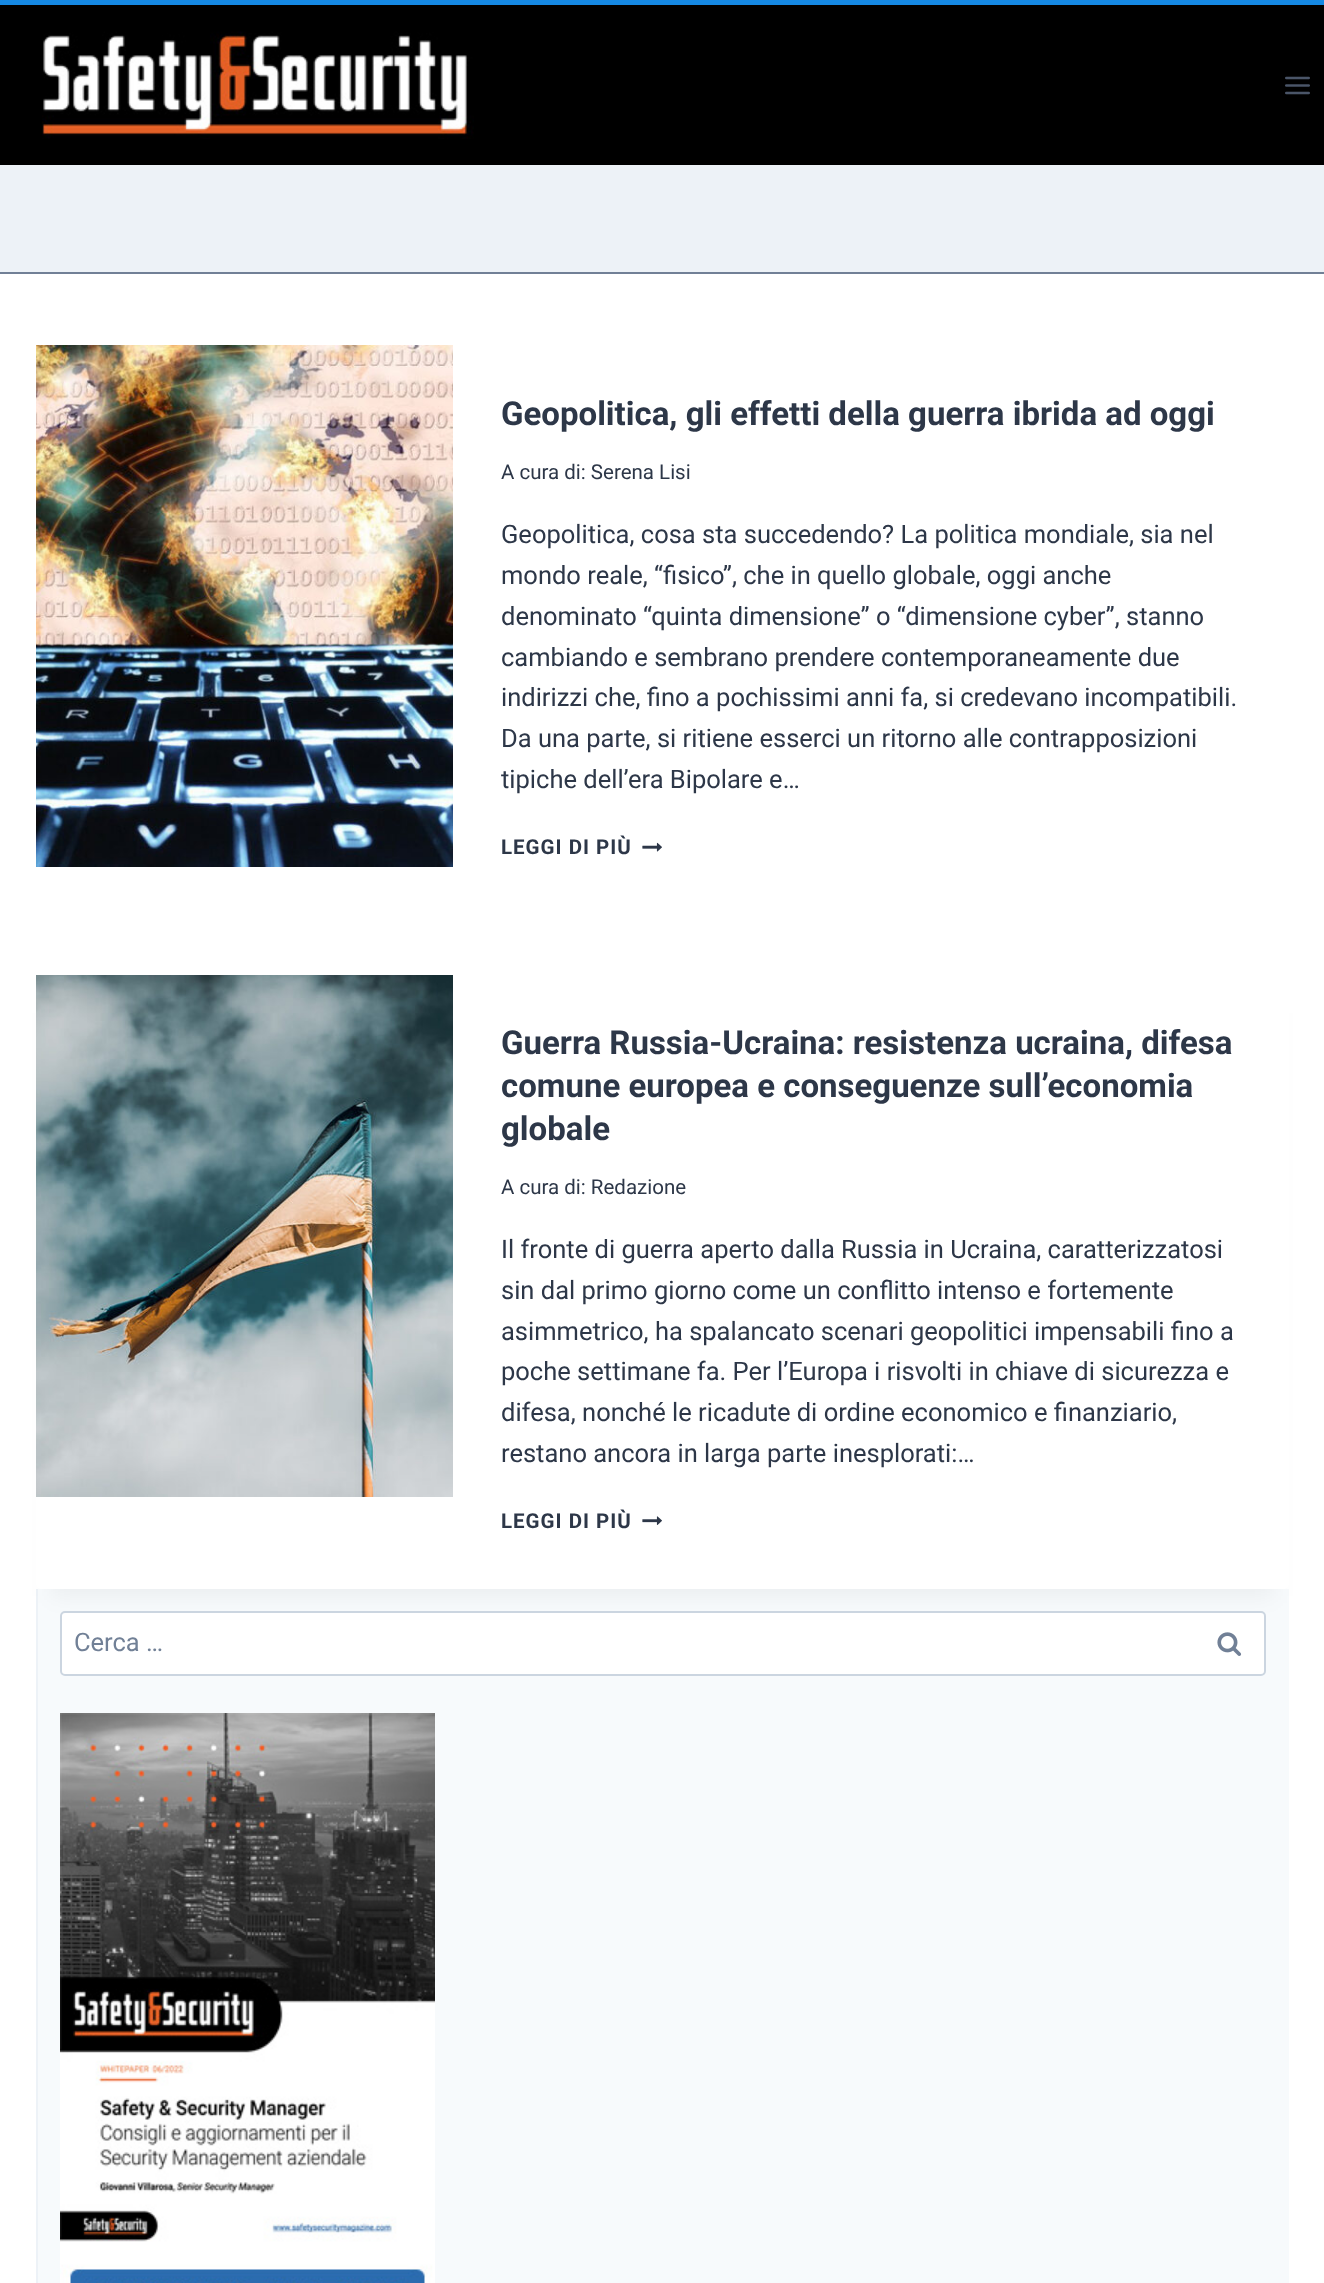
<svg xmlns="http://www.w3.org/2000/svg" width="1324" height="2283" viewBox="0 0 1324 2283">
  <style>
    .t1 { font: bold 33px Roboto; fill: #2d3748; }
    .t2 { font: 20.5px Roboto; fill: #2d3748; }
    .t3 { font: 25.5px Roboto; fill: #2d3748; }
    .t4 { font: bold 20.5px Roboto; letter-spacing: 1px; fill: #2d3748; }
    .t5 { font: 25.5px Roboto; fill: #718096; }
  </style>
  <rect width="100%" height="100%" fill="#fff"/>
  <rect x="0" y="5" width="1324" height="160" fill="#000"/>
  <rect x="0" y="0" width="1324" height="5" fill="#1589e4"/>
  <image x="42" y="31" width="432" height="108" href="images/1.png"/>
  <image x="1285" y="76" width="25" height="19" href="images/2.png"/>
  <rect x="0" y="165" width="1324" height="107" fill="#edf2f7"/>
  <rect x="0" y="272" width="1324" height="2" fill="#718096"/>
  <image x="36" y="345" width="417" height="522" href="images/3.png"/>
  <text x="501" y="425" class="t1">Geopolitica, gli effetti della guerra ibrida ad oggi</text>
  <text x="501" y="479" class="t2">A cura di: Serena Lisi</text>
  <text x="501" y="543" class="t3">Geopolitica, cosa sta succedendo? La politica mondiale, sia nel</text>
  <text x="501" y="584" class="t3">mondo reale, “fisico”, che in quello globale, oggi anche</text>
  <text x="501" y="625" class="t3">denominato “quinta dimensione” o “dimensione cyber”, stanno</text>
  <text x="501" y="666" class="t3">cambiando e sembrano prendere contemporaneamente due</text>
  <text x="501" y="706" class="t3">indirizzi che, fino a pochissimi anni fa, si credevano incompatibili.</text>
  <text x="501" y="747" class="t3">Da una parte, si ritiene esserci un ritorno alle contrapposizioni</text>
  <text x="501" y="788" class="t3">tipiche dell’era Bipolare e…</text>
  <text x="501" y="854" class="t4">LEGGI DI PIÙ</text>
  <image x="642" y="842" width="20" height="10" href="images/4.png"/>
  <rect x="38" y="1589" width="1251" height="694" fill="#f7fafc"/>
  <rect x="36" y="1589" width="2" height="694" fill="#edf2f7"/>
  <rect x="51" y="1013" width="1223" height="583" fill="#0000000d" filter="blur(11px)"/>
  <rect x="36" y="975" width="1253" height="614" rx="6" fill="#fff"/>
  <image x="36" y="975" width="417" height="522" href="images/5.png"/>
  <text x="501" y="1054" class="t1">Guerra Russia-Ucraina: resistenza ucraina, difesa</text>
  <text x="501" y="1097" class="t1">comune europea e conseguenze sull’economia</text>
  <text x="501" y="1140" class="t1">globale</text>
  <text x="501" y="1194" class="t2">A cura di: Redazione</text>
  <text x="501" y="1258" class="t3">Il fronte di guerra aperto dalla Russia in Ucraina, caratterizzatosi</text>
  <text x="501" y="1299" class="t3">sin dal primo giorno come un conflitto intenso e fortemente</text>
  <text x="501" y="1340" class="t3">asimmetrico, ha spalancato scenari geopolitici impensabili fino a</text>
  <text x="501" y="1380" class="t3">poche settimane fa. Per l’Europa i risvolti in chiave di sicurezza e</text>
  <text x="501" y="1421" class="t3">difesa, nonché le ricadute di ordine economico e finanziario,</text>
  <text x="501" y="1462" class="t3">restano ancora in larga parte inesplorati:…</text>
  <text x="501" y="1528" class="t4">LEGGI DI PIÙ</text>
  <image x="642" y="1516" width="20" height="9" href="images/6.png"/>
  <rect x="61" y="1612" width="1204" height="63" rx="4" fill="#fff" stroke="#cbd5e0" stroke-width="2"/>
  <text x="74" y="1651" class="t5">Cerca …</text>
  <image x="1217" y="1632" width="25" height="24" href="images/7.png"/>
  <image x="60" y="1713" width="375" height="570" href="images/8.png"/>
</svg>
